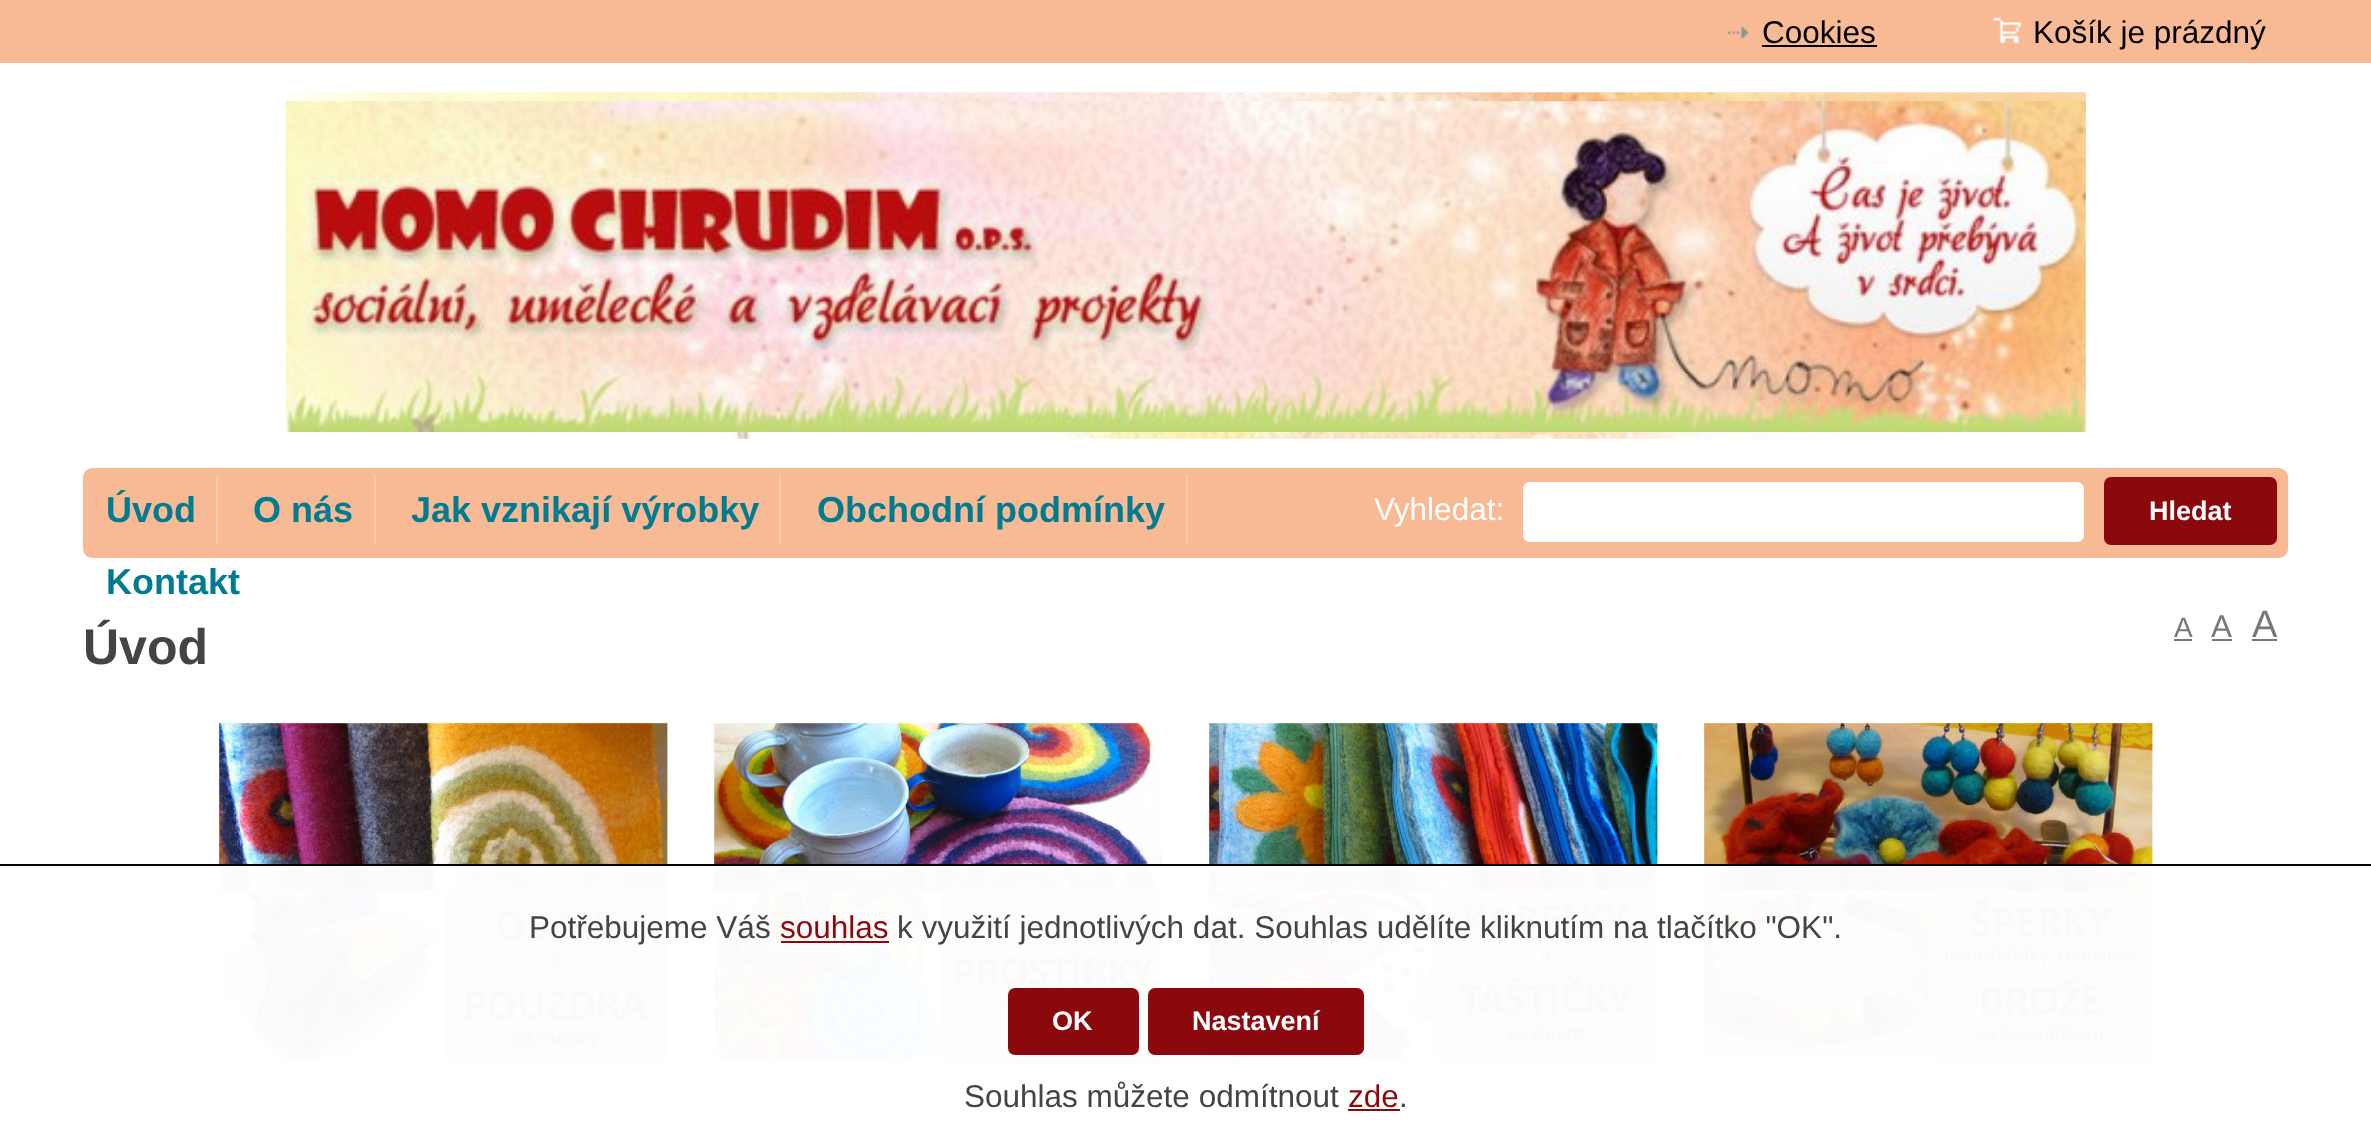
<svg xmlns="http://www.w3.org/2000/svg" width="2371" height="1138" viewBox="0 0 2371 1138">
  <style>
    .t1 { font: 31.5px Liberation Sans; fill: #000; }
    .t2 { font: bold 36px Liberation Sans; fill: #007b90; }
    .t3 { font: 31.5px Liberation Sans; fill: #fff; }
    .t4 { font: bold 27px Liberation Sans; fill: #fff; }
    .t5 { font: bold 50px Liberation Sans; fill: #444; }
    .t6 { font: 28px Liberation Sans; fill: #777; }
    .t7 { font: 31.5px Liberation Sans; fill: #777; }
    .t8 { font: 38px Liberation Sans; fill: #777; }
    .t9 { font: 31.5px Liberation Sans; fill: #444; }
    .t10 { font: 31.5px Liberation Sans; fill: #8b090d; }
  </style>
  <rect width="100%" height="100%" fill="#fff"/>
  <rect x="0" y="0" width="2371" height="63" fill="#f8ba95"/>
  <image x="1728" y="27" width="21" height="12" href="images/1.png"/>
  <text x="1762" y="43" class="t1">Cookies</text>
  <rect x="1762" y="45" width="115" height="2" fill="#000"/>
  <image x="1993" y="17" width="29" height="27" href="images/2.png"/>
  <text x="2033" y="43" class="t1">Košík je prázdný</text>
  <rect x="83" y="468" width="2205" height="90" rx="9" fill="#f8ba95"/>
  <text x="106" y="522" class="t2">Úvod</text>
  <rect x="216" y="475" width="2" height="70" fill="#ffcba6"/>
  <text x="253" y="522" class="t2">O nás</text>
  <rect x="374" y="475" width="2" height="70" fill="#ffcba6"/>
  <text x="411" y="522" class="t2">Jak vznikají výrobky</text>
  <rect x="779" y="475" width="2" height="70" fill="#ffcba6"/>
  <text x="817" y="522" class="t2">Obchodní podmínky</text>
  <rect x="1186" y="475" width="2" height="70" fill="#ffcba6"/>
  <text x="106" y="594" class="t2">Kontakt</text>
  <image x="285" y="92" width="1801" height="347" href="images/3.png"/>
  <text x="1374" y="520" class="t3">Vyhledat:</text>
  <rect x="1523" y="482" width="561" height="60" rx="7" fill="#fff"/>
  <rect x="2104" y="477" width="173" height="68" rx="7" fill="#8b090d"/>
  <text x="2149" y="520" class="t4">Hledat</text>
  <text x="83" y="664" class="t5">Úvod</text>
  <text x="2174" y="637" class="t6">A</text>
  <rect x="2174" y="639" width="18" height="2" fill="#777"/>
  <text x="2211" y="637" class="t7">A</text>
  <rect x="2212" y="639" width="20" height="2" fill="#777"/>
  <text x="2252" y="637" class="t8">A</text>
  <rect x="2252" y="639" width="25" height="2" fill="#777"/>
  <image x="218" y="722" width="451" height="338" href="images/4.png"/>
  <image x="713" y="722" width="451" height="338" href="images/5.png"/>
  <image x="1208" y="722" width="451" height="338" href="images/6.png"/>
  <image x="1703" y="722" width="451" height="338" href="images/7.png"/>
  <rect x="218" y="866" width="1936" height="194" fill="#fffffffa"/>
  <rect x="0" y="864" width="2371" height="2" fill="#000"/>
  <text x="529" y="938" class="t9">Potřebujeme Váš</text>
  <text x="780" y="938" class="t10">souhlas</text>
  <rect x="781" y="941" width="108" height="2" fill="#8b090d"/>
  <text x="897" y="938" class="t9">k využití jednotlivých dat. Souhlas udělíte kliknutím na tlačítko "OK".</text>
  <rect x="1008" y="988" width="131" height="67" rx="7" fill="#8b090d"/>
  <text x="1052" y="1030" class="t4">OK</text>
  <rect x="1148" y="988" width="216" height="67" rx="7" fill="#8b090d"/>
  <text x="1192" y="1030" class="t4">Nastavení</text>
  <text x="964" y="1107" class="t9">Souhlas můžete odmítnout</text>
  <text x="1348" y="1107" class="t10">zde</text>
  <rect x="1348" y="1109" width="52" height="2" fill="#8b090d"/>
  <text x="1399" y="1107" class="t9">.</text>
</svg>
